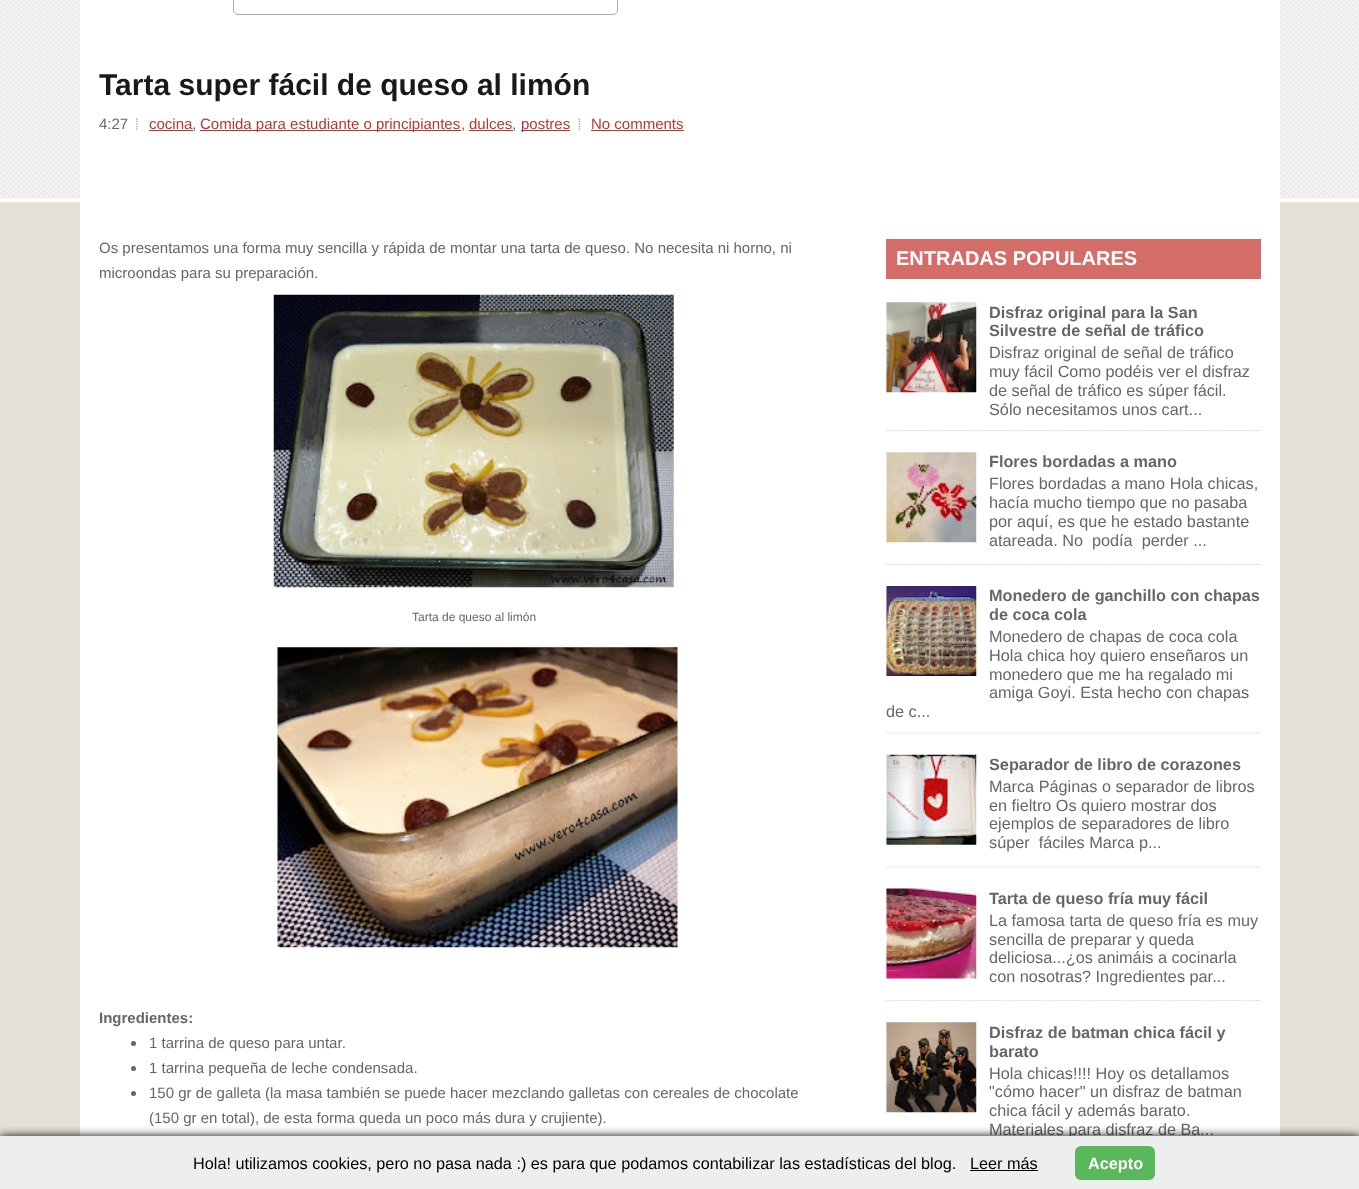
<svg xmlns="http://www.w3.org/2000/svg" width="1359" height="1189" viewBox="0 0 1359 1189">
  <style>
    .t1 { font: bold 30px Liberation Sans; fill: #191919; }
    .t2 { font: 15px Liberation Sans; fill: #666; }
    .t3 { font: 15px Liberation Sans; fill: #b23a33; }
    .t4 { font: 12px Liberation Sans; fill: #666; }
    .t5 { font: bold 15px Liberation Sans; fill: #666; }
    .t6 { font: bold 20px Liberation Sans; fill: #fff; }
    .t7 { font: bold 16.25px Liberation Sans; fill: #666; }
    .t8 { font: 16.25px Liberation Sans; fill: #666; }
    .t9 { font: 16.25px Liberation Sans; fill: #000; }
    .t10 { font: bold 16.25px Liberation Sans; fill: #fff; }
  </style>
  <rect width="100%" height="100%" fill="#e4e0d5"/>
  <image x="0" y="0" width="1359" height="203" href="images/1.png"/>
  <rect x="80" y="0" width="1200" height="1136" fill="#fff"/>
  <rect x="233.5" y="-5.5" width="384" height="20" rx="4.5" fill="none" stroke="#aaa"/>
  <text x="99" y="95" class="t1">Tarta super fácil de queso al limón</text>
  <text x="99" y="129" class="t2">4:27</text>
  <image x="136" y="118" width="2" height="12" href="images/2.png"/>
  <text x="149" y="129" class="t3">cocina</text>
  <text x="192" y="129" class="t2">,</text>
  <rect x="149" y="130" width="44" height="1" fill="#b23a33"/>
  <rect x="200" y="130" width="261" height="1" fill="#b23a33"/>
  <text x="200" y="129" class="t3">Comida para estudiante o principiantes</text>
  <text x="461" y="129" class="t2">,</text>
  <text x="469" y="129" class="t3">dulces</text>
  <text x="512" y="129" class="t2">,</text>
  <rect x="469" y="130" width="44" height="1" fill="#b23a33"/>
  <rect x="521" y="130" width="49" height="1" fill="#b23a33"/>
  <text x="521" y="129" class="t3">postres</text>
  <image x="578" y="118" width="2" height="12" href="images/3.png"/>
  <text x="591" y="129" class="t3">No comments</text>
  <rect x="591" y="130" width="93" height="1" fill="#b23a33"/>
  <text x="99" y="253" class="t2">Os presentamos una forma muy sencilla y rápida de montar una tarta de queso. No necesita ni horno, ni</text>
  <text x="99" y="278" class="t2">microondas para su preparación.</text>
  <image x="273" y="294" width="401" height="294" href="images/4.png"/>
  <text x="412" y="621" class="t4">Tarta de queso al limón</text>
  <image x="277" y="647" width="401" height="301" href="images/5.png"/>
  <text x="99" y="1023" class="t5">Ingredientes:</text>
  <circle cx="133.5" cy="1043.5" r="2.5" fill="#666"/>
  <text x="149" y="1048" class="t2">1 tarrina de queso para untar.</text>
  <circle cx="133.5" cy="1068.5" r="2.5" fill="#666"/>
  <text x="149" y="1073" class="t2">1 tarrina pequeña de leche condensada.</text>
  <circle cx="133.5" cy="1093.5" r="2.5" fill="#666"/>
  <text x="149" y="1098" class="t2">150 gr de galleta (la masa también se puede hacer mezclando galletas con cereales de chocolate</text>
  <text x="149" y="1123" class="t2">(150 gr en total), de esta forma queda un poco más dura y crujiente).</text>
  <rect x="886" y="239" width="375" height="40" fill="#d46d67"/>
  <text x="896" y="265" class="t6">ENTRADAS POPULARES</text>
  <path d="M886 430.5H1261" fill="none" stroke="#d2d2d2" stroke-width="1.2" stroke-dasharray="1.25 1.25"/>
  <image x="886" y="302" width="91" height="91" href="images/6.png"/>
  <text x="989" y="318" class="t7">Disfraz original para la San</text>
  <text x="989" y="336" class="t7">Silvestre de señal de tráfico</text>
  <text x="989" y="358" class="t8">Disfraz original de señal de tráfico</text>
  <text x="989" y="377" class="t8">muy fácil Como podéis ver el disfraz</text>
  <text x="989" y="396" class="t8">de señal de tráfico es súper fácil.</text>
  <text x="989" y="415" class="t8">Sólo necesitamos unos cart...</text>
  <path d="M886 564.5H1261" fill="none" stroke="#d2d2d2" stroke-width="1.2" stroke-dasharray="1.25 1.25"/>
  <image x="886" y="452" width="91" height="91" href="images/7.png"/>
  <text x="989" y="467" class="t7">Flores bordadas a mano</text>
  <text x="989" y="489" class="t8">Flores bordadas a mano Hola chicas,</text>
  <text x="989" y="508" class="t8">hacía mucho tiempo que no pasaba</text>
  <text x="989" y="527" class="t8">por aquí, es que he estado bastante</text>
  <text x="989" y="546" class="t8" xml:space="preserve">atareada. No  podía  perder ...</text>
  <path d="M886 733H1261" fill="none" stroke="#d2d2d2" stroke-width="1.2" stroke-dasharray="1.25 1.25"/>
  <image x="886" y="586" width="91" height="90" href="images/8.png"/>
  <text x="989" y="601" class="t7">Monedero de ganchillo con chapas</text>
  <text x="989" y="620" class="t7">de coca cola</text>
  <text x="989" y="642" class="t8">Monedero de chapas de coca cola</text>
  <text x="989" y="661" class="t8">Hola chica hoy quiero enseñaros un</text>
  <text x="989" y="680" class="t8">monedero que me ha regalado mi</text>
  <text x="989" y="698" class="t8">amiga Goyi. Esta hecho con chapas</text>
  <text x="886" y="717" class="t8">de c...</text>
  <path d="M886 867H1261" fill="none" stroke="#d2d2d2" stroke-width="1.2" stroke-dasharray="1.25 1.25"/>
  <image x="886" y="754" width="91" height="91" href="images/9.png"/>
  <text x="989" y="770" class="t7">Separador de libro de corazones</text>
  <text x="989" y="792" class="t8">Marca Páginas o separador de libros</text>
  <text x="989" y="811" class="t8">en fieltro Os quiero mostrar dos</text>
  <text x="989" y="829" class="t8">ejemplos de separadores de libro</text>
  <text x="989" y="848" class="t8" xml:space="preserve">súper  fáciles Marca p...</text>
  <path d="M886 1000.5H1261" fill="none" stroke="#d2d2d2" stroke-width="1.2" stroke-dasharray="1.25 1.25"/>
  <image x="886" y="888" width="91" height="91" href="images/10.png"/>
  <text x="989" y="904" class="t7">Tarta de queso fría muy fácil</text>
  <text x="989" y="926" class="t8">La famosa tarta de queso fría es muy</text>
  <text x="989" y="945" class="t8">sencilla de preparar y queda</text>
  <text x="989" y="963" class="t8">deliciosa...¿os animáis a cocinarla</text>
  <text x="989" y="982" class="t8">con nosotras? Ingredientes par...</text>
  <image x="886" y="1022" width="91" height="91" href="images/11.png"/>
  <text x="989" y="1038" class="t7">Disfraz de batman chica fácil y</text>
  <text x="989" y="1057" class="t7">barato</text>
  <text x="989" y="1079" class="t8">Hola chicas!!!! Hoy os detallamos</text>
  <text x="989" y="1097" class="t8">"cómo hacer" un disfraz de batman</text>
  <text x="989" y="1116" class="t8">chica fácil y además barato.</text>
  <text x="989" y="1135" class="t8">Materiales para disfraz de Ba...</text>
  <rect x="0" y="1136" width="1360" height="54" fill="#000" filter="blur(5px)"/>
  <rect x="0" y="1136" width="1359" height="53" fill="#eee"/>
  <text x="193" y="1169" class="t9">Hola! utilizamos cookies, pero no pasa nada :) es para que podamos contabilizar las estadísticas del blog.</text>
  <text x="970" y="1169" class="t9">Leer más</text>
  <rect x="970" y="1170" width="68" height="1" fill="#000"/>
  <rect x="1075" y="1146" width="80" height="34" rx="6" fill="#5bb75b"/>
  <text x="1088" y="1169" class="t10">Acepto</text>
</svg>
